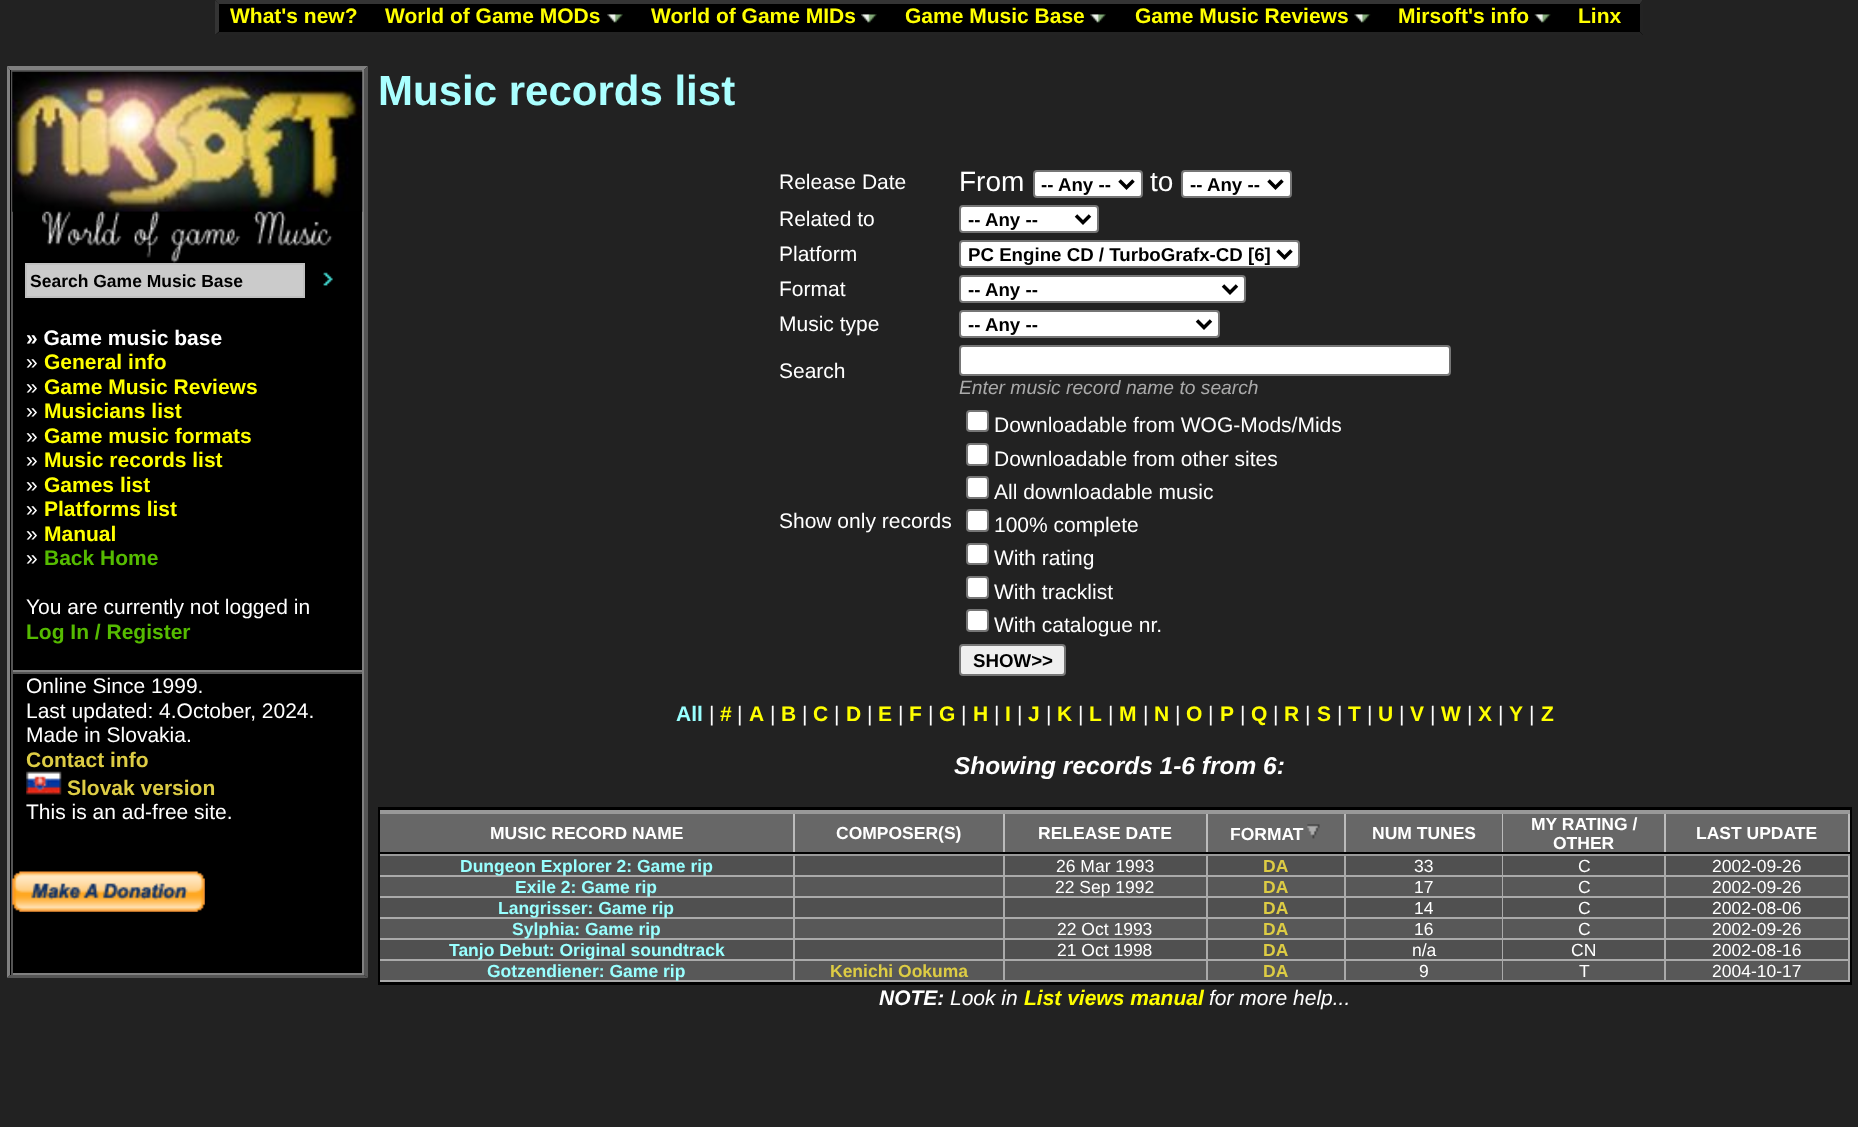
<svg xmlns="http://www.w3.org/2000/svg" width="1858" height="1127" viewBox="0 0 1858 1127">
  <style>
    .t1 { font: bold 21px Liberation Sans; fill: #ff0; }
    .t2 { font: bold 17.5px Liberation Sans; fill: #000; }
    .t3 { font: bold 21px Liberation Sans; fill: #fff; }
    .t4 { font: 21px Liberation Sans; fill: #fff; }
    .t5 { font: bold 21px Liberation Sans; fill: #5b0; }
    .t6 { font: bold 21px Liberation Sans; fill: #dc4; }
    .t7 { font: bold 42px Liberation Sans; fill: #aff; }
    .t8 { font: 28px Liberation Sans; fill: #fff; }
    .t9 { font: bold 18.7px Liberation Sans; fill: #000; }
    .t10 { font: italic 19.25px Liberation Sans; fill: #aaa; }
    .t11 { font: bold 21px Liberation Sans; fill: #9ff; }
    .t12 { font: italic bold 24.5px Liberation Sans; fill: #fff; }
    .t13 { font: bold 17.5px Liberation Sans; fill: #fff; }
    .t14 { font: bold 17.5px Liberation Sans; fill: #9ff; }
    .t15 { font: 17.5px Liberation Sans; fill: #fff; }
    .t16 { font: bold 17.5px Liberation Sans; fill: #dc4; }
    .t17 { font: italic bold 21px Liberation Sans; fill: #fff; }
    .t18 { font: italic 21px Liberation Sans; fill: #fff; }
    .t19 { font: italic bold 21px Liberation Sans; fill: #ff0; }
  </style>
  <rect width="100%" height="100%" fill="#222"/>
  <rect x="215" y="0" width="1428" height="35" fill="#000"/>
  <path d="M215 0H1643L1640 4H219Z" fill="#343434"/>
  <path d="M1643 0V35L1640 31.5V3.5Z" fill="#232323"/>
  <path d="M1643 35H215L219 32H1640Z" fill="#232323"/>
  <path d="M215 35V0L219 3.5V31.5Z" fill="#343434"/>
  <text x="230" y="23" class="t1">What's new?</text>
  <text x="385" y="23" class="t1">World of Game MODs</text>
  <image x="607" y="14" width="16" height="9" href="images/1.png"/>
  <text x="651" y="23" class="t1">World of Game MIDs</text>
  <image x="861" y="14" width="16" height="9" href="images/2.png"/>
  <text x="905" y="23" class="t1">Game Music Base</text>
  <image x="1090" y="14" width="16" height="9" href="images/1.png"/>
  <text x="1135" y="23" class="t1">Game Music Reviews</text>
  <image x="1354" y="14" width="17" height="9" href="images/3.png"/>
  <text x="1398" y="23" class="t1">Mirsoft's info</text>
  <image x="1534" y="14" width="17" height="9" href="images/4.png"/>
  <text x="1578" y="23" class="t1">Linx</text>
  <rect x="7" y="67" width="361" height="911" fill="#000"/>
  <path d="M7 66H368L364 70H10Z" fill="#808080"/>
  <path d="M368 66V978L364 975V70Z" fill="#555"/>
  <path d="M368 978H7L10 975H364Z" fill="#555"/>
  <path d="M7 978V66L10 70V975Z" fill="#808080"/>
  <rect x="11" y="70" width="353" height="2" fill="#555"/>
  <rect x="362" y="70" width="2" height="602" fill="#808080"/>
  <rect x="11" y="670" width="353" height="2" fill="#808080"/>
  <rect x="11" y="70" width="2" height="602" fill="#555"/>
  <image x="12" y="71" width="351" height="141" href="images/5.png"/>
  <image x="42" y="211" width="291" height="52" href="images/6.png"/>
  <rect x="26" y="264" width="278" height="33" fill="#cbcbcb" stroke="#c0c0c0" stroke-width="2"/>
  <text x="30" y="287" class="t2">Search Game Music Base</text>
  <image x="323" y="272" width="10" height="14" href="images/7.png"/>
  <text x="26" y="345" class="t3">» Game music base</text>
  <text x="26" y="369" class="t4">»</text>
  <text x="44" y="369" class="t1">General info</text>
  <text x="26" y="394" class="t4">»</text>
  <text x="44" y="394" class="t1">Game Music Reviews</text>
  <text x="26" y="418" class="t4">»</text>
  <text x="44" y="418" class="t1">Musicians list</text>
  <text x="26" y="443" class="t4">»</text>
  <text x="44" y="443" class="t1">Game music formats</text>
  <text x="26" y="467" class="t4">»</text>
  <text x="44" y="467" class="t1">Music records list</text>
  <text x="26" y="492" class="t4">»</text>
  <text x="44" y="492" class="t1">Games list</text>
  <text x="26" y="516" class="t4">»</text>
  <text x="44" y="516" class="t1">Platforms list</text>
  <text x="26" y="541" class="t4">»</text>
  <text x="44" y="541" class="t1">Manual</text>
  <text x="26" y="565" class="t4">»</text>
  <text x="44" y="565" class="t5">Back Home</text>
  <text x="26" y="614" class="t4">You are currently not logged in</text>
  <text x="26" y="639" class="t5">Log In / Register</text>
  <rect x="11" y="672" width="353" height="2" fill="#555"/>
  <rect x="362" y="672" width="2" height="303" fill="#808080"/>
  <rect x="11" y="973" width="353" height="2" fill="#808080"/>
  <rect x="11" y="672" width="2" height="303" fill="#555"/>
  <text x="26" y="693" class="t4">Online Since 1999.</text>
  <text x="26" y="718" class="t4">Last updated: 4.October, 2024.</text>
  <text x="26" y="742" class="t4">Made in Slovakia.</text>
  <text x="26" y="767" class="t6">Contact info</text>
  <image x="26" y="771" width="36" height="24" href="images/8.png"/>
  <text x="67" y="795" class="t6">Slovak version</text>
  <text x="26" y="819" class="t4">This is an ad-free site.</text>
  <image x="12" y="871" width="193" height="41" href="images/9.png"/>
  <text x="378" y="105" class="t7">Music records list</text>
  <text x="779" y="189" class="t4">Release Date</text>
  <text x="959" y="191" class="t8">From</text>
  <rect x="1034" y="171" width="108" height="26" rx="3" fill="#fff" stroke="#767676" stroke-width="2"/>
  <path d="M1119.5 180.5L1126.5 187.5L1133.5 180.5" fill="none" stroke="#000" stroke-width="3.5"/>
  <text x="1041" y="191" class="t9">-- Any --</text>
  <text x="1150" y="191" class="t8">to</text>
  <rect x="1182" y="171" width="109" height="26" rx="3" fill="#fff" stroke="#767676" stroke-width="2"/>
  <path d="M1268.5 180.5L1275.5 187.5L1282.5 180.5" fill="none" stroke="#000" stroke-width="3.5"/>
  <text x="1190" y="191" class="t9">-- Any --</text>
  <text x="779" y="226" class="t4">Related to</text>
  <rect x="960" y="206" width="138" height="26" rx="3" fill="#fff" stroke="#767676" stroke-width="2"/>
  <path d="M1076 215.5L1083 222.5L1090 215.5" fill="none" stroke="#000" stroke-width="3.5"/>
  <text x="968" y="226" class="t9">-- Any --</text>
  <text x="779" y="261" class="t4">Platform</text>
  <rect x="960" y="241" width="339" height="26" rx="3" fill="#fff" stroke="#767676" stroke-width="2"/>
  <path d="M1277.5 250.5L1284.5 257.5L1291.5 250.5" fill="none" stroke="#000" stroke-width="3.5"/>
  <text x="968" y="261" class="t9">PC Engine CD / TurboGrafx-CD [6]</text>
  <text x="779" y="296" class="t4">Format</text>
  <rect x="960" y="276" width="285" height="26" rx="3" fill="#fff" stroke="#767676" stroke-width="2"/>
  <path d="M1223 285.5L1230 292.5L1237 285.5" fill="none" stroke="#000" stroke-width="3.5"/>
  <text x="968" y="296" class="t9">-- Any --</text>
  <text x="779" y="331" class="t4">Music type</text>
  <rect x="960" y="311" width="259" height="26" rx="3" fill="#fff" stroke="#767676" stroke-width="2"/>
  <path d="M1197 320.5L1204 327.5L1211 320.5" fill="none" stroke="#000" stroke-width="3.5"/>
  <text x="968" y="331" class="t9">-- Any --</text>
  <text x="779" y="378" class="t4">Search</text>
  <rect x="960" y="346" width="490" height="29" rx="3" fill="#fff" stroke="#767676" stroke-width="2"/>
  <text x="959" y="394" class="t10">Enter music record name to search</text>
  <text x="779" y="528" class="t4">Show only records</text>
  <rect x="967" y="411" width="21" height="20" rx="3" fill="#fff" stroke="#767676" stroke-width="2"/>
  <text x="994" y="432" class="t4">Downloadable from WOG-Mods/Mids</text>
  <rect x="967" y="444" width="21" height="21" rx="3" fill="#fff" stroke="#767676" stroke-width="2"/>
  <text x="994" y="466" class="t4">Downloadable from other sites</text>
  <rect x="967" y="477" width="21" height="21" rx="3" fill="#fff" stroke="#767676" stroke-width="2"/>
  <text x="994" y="499" class="t4">All downloadable music</text>
  <rect x="967" y="510" width="21" height="21" rx="3" fill="#fff" stroke="#767676" stroke-width="2"/>
  <text x="994" y="532" class="t4">100% complete</text>
  <rect x="967" y="544" width="21" height="20" rx="3" fill="#fff" stroke="#767676" stroke-width="2"/>
  <text x="994" y="565" class="t4">With rating</text>
  <rect x="967" y="577" width="21" height="21" rx="3" fill="#fff" stroke="#767676" stroke-width="2"/>
  <text x="994" y="599" class="t4">With tracklist</text>
  <rect x="967" y="610" width="21" height="21" rx="3" fill="#fff" stroke="#767676" stroke-width="2"/>
  <text x="994" y="632" class="t4">With catalogue nr.</text>
  <rect x="960" y="645" width="105" height="30" rx="3" fill="#efefef" stroke="#767676" stroke-width="2"/>
  <text x="973" y="667" class="t9">SHOW&gt;&gt;</text>
  <text x="676" y="721" class="t11">All</text>
  <text x="709" y="721" class="t4">|</text>
  <text x="720" y="721" class="t1">#</text>
  <text x="737" y="721" class="t4">|</text>
  <text x="749" y="721" class="t1">A</text>
  <text x="770" y="721" class="t4">|</text>
  <text x="781" y="721" class="t1">B</text>
  <text x="802" y="721" class="t4">|</text>
  <text x="813" y="721" class="t1">C</text>
  <text x="834" y="721" class="t4">|</text>
  <text x="846" y="721" class="t1">D</text>
  <text x="867" y="721" class="t4">|</text>
  <text x="878" y="721" class="t1">E</text>
  <text x="898" y="721" class="t4">|</text>
  <text x="909" y="721" class="t1">F</text>
  <text x="928" y="721" class="t4">|</text>
  <text x="939" y="721" class="t1">G</text>
  <text x="961" y="721" class="t4">|</text>
  <text x="973" y="721" class="t1">H</text>
  <text x="994" y="721" class="t4">|</text>
  <text x="1005" y="721" class="t1">I</text>
  <text x="1017" y="721" class="t4">|</text>
  <text x="1028" y="721" class="t1">J</text>
  <text x="1046" y="721" class="t4">|</text>
  <text x="1057" y="721" class="t1">K</text>
  <text x="1078" y="721" class="t4">|</text>
  <text x="1089" y="721" class="t1">L</text>
  <text x="1108" y="721" class="t4">|</text>
  <text x="1119" y="721" class="t1">M</text>
  <text x="1143" y="721" class="t4">|</text>
  <text x="1154" y="721" class="t1">N</text>
  <text x="1175" y="721" class="t4">|</text>
  <text x="1186" y="721" class="t1">O</text>
  <text x="1208" y="721" class="t4">|</text>
  <text x="1220" y="721" class="t1">P</text>
  <text x="1240" y="721" class="t4">|</text>
  <text x="1251" y="721" class="t1">Q</text>
  <text x="1273" y="721" class="t4">|</text>
  <text x="1284" y="721" class="t1">R</text>
  <text x="1305" y="721" class="t4">|</text>
  <text x="1317" y="721" class="t1">S</text>
  <text x="1337" y="721" class="t4">|</text>
  <text x="1348" y="721" class="t1">T</text>
  <text x="1367" y="721" class="t4">|</text>
  <text x="1378" y="721" class="t1">U</text>
  <text x="1399" y="721" class="t4">|</text>
  <text x="1410" y="721" class="t1">V</text>
  <text x="1430" y="721" class="t4">|</text>
  <text x="1441" y="721" class="t1">W</text>
  <text x="1467" y="721" class="t4">|</text>
  <text x="1478" y="721" class="t1">X</text>
  <text x="1498" y="721" class="t4">|</text>
  <text x="1509" y="721" class="t1">Y</text>
  <text x="1529" y="721" class="t4">|</text>
  <text x="1541" y="721" class="t1">Z</text>
  <text x="954" y="774" class="t12">Showing records 1-6 from 6:</text>
  <rect x="379" y="808" width="1472" height="176" fill="none" stroke="#000" stroke-width="2"/>
  <rect x="380" y="809" width="1470" height="1" fill="#000"/>
  <rect x="380" y="810" width="1470" height="4" fill="#999"/>
  <rect x="380" y="814" width="413" height="38" fill="#676767"/>
  <rect x="793" y="814" width="2" height="38" fill="#bbb"/>
  <text x="490" y="839" class="t13">MUSIC RECORD NAME</text>
  <rect x="795" y="814" width="208" height="38" fill="#676767"/>
  <rect x="1003" y="814" width="2" height="38" fill="#bbb"/>
  <text x="836" y="839" class="t13">COMPOSER(S)</text>
  <rect x="1005" y="814" width="201" height="38" fill="#676767"/>
  <rect x="1206" y="814" width="2" height="38" fill="#bbb"/>
  <text x="1038" y="839" class="t13">RELEASE DATE</text>
  <rect x="1208" y="814" width="136" height="38" fill="#676767"/>
  <rect x="1344" y="814" width="2" height="38" fill="#bbb"/>
  <text x="1230" y="840" class="t13">FORMAT</text>
  <image x="1307" y="824" width="13" height="15" href="images/10.png"/>
  <rect x="1346" y="814" width="156" height="38" fill="#676767"/>
  <rect x="1502" y="814" width="1" height="38" fill="#bbb"/>
  <text x="1372" y="839" class="t13">NUM TUNES</text>
  <rect x="1503" y="814" width="161" height="38" fill="#676767"/>
  <rect x="1664" y="814" width="2" height="38" fill="#bbb"/>
  <text x="1531" y="830" class="t13">MY RATING /</text>
  <text x="1553" y="849" class="t13">OTHER</text>
  <rect x="1666" y="814" width="182" height="38" fill="#676767"/>
  <rect x="1848" y="814" width="2" height="38" fill="#bbb"/>
  <text x="1696" y="839" class="t13">LAST UPDATE</text>
  <rect x="380" y="852" width="1470" height="2" fill="#000"/>
  <rect x="380" y="854" width="1470" height="2" fill="#999"/>
  <rect x="380" y="856" width="413" height="19" fill="#505050"/>
  <rect x="793" y="856" width="2" height="19" fill="#aaa"/>
  <rect x="380" y="875" width="1470" height="2" fill="#aaa"/>
  <text x="460" y="872" class="t14">Dungeon Explorer 2: Game rip</text>
  <rect x="795" y="856" width="208" height="19" fill="#505050"/>
  <rect x="1003" y="856" width="2" height="19" fill="#aaa"/>
  <rect x="1005" y="856" width="201" height="19" fill="#505050"/>
  <rect x="1206" y="856" width="2" height="19" fill="#aaa"/>
  <text x="1056" y="872" class="t15">26 Mar 1993</text>
  <rect x="1208" y="856" width="136" height="19" fill="#505050"/>
  <rect x="1344" y="856" width="2" height="19" fill="#aaa"/>
  <text x="1263" y="872" class="t16">DA</text>
  <rect x="1346" y="856" width="156" height="19" fill="#505050"/>
  <rect x="1502" y="856" width="1" height="19" fill="#aaa"/>
  <text x="1414" y="872" class="t15">33</text>
  <rect x="1503" y="856" width="161" height="19" fill="#505050"/>
  <rect x="1664" y="856" width="2" height="19" fill="#aaa"/>
  <text x="1578" y="872" class="t15">C</text>
  <rect x="1666" y="856" width="182" height="19" fill="#505050"/>
  <rect x="1848" y="856" width="2" height="19" fill="#aaa"/>
  <text x="1712" y="872" class="t15">2002-09-26</text>
  <rect x="380" y="877" width="413" height="19" fill="#585858"/>
  <rect x="793" y="877" width="2" height="19" fill="#aaa"/>
  <rect x="380" y="896" width="1470" height="2" fill="#aaa"/>
  <text x="515" y="893" class="t14">Exile 2: Game rip</text>
  <rect x="795" y="877" width="208" height="19" fill="#585858"/>
  <rect x="1003" y="877" width="2" height="19" fill="#aaa"/>
  <rect x="1005" y="877" width="201" height="19" fill="#585858"/>
  <rect x="1206" y="877" width="2" height="19" fill="#aaa"/>
  <text x="1055" y="893" class="t15">22 Sep 1992</text>
  <rect x="1208" y="877" width="136" height="19" fill="#585858"/>
  <rect x="1344" y="877" width="2" height="19" fill="#aaa"/>
  <text x="1263" y="893" class="t16">DA</text>
  <rect x="1346" y="877" width="156" height="19" fill="#585858"/>
  <rect x="1502" y="877" width="1" height="19" fill="#aaa"/>
  <text x="1414" y="893" class="t15">17</text>
  <rect x="1503" y="877" width="161" height="19" fill="#585858"/>
  <rect x="1664" y="877" width="2" height="19" fill="#aaa"/>
  <text x="1578" y="893" class="t15">C</text>
  <rect x="1666" y="877" width="182" height="19" fill="#585858"/>
  <rect x="1848" y="877" width="2" height="19" fill="#aaa"/>
  <text x="1712" y="893" class="t15">2002-09-26</text>
  <rect x="380" y="898" width="413" height="19" fill="#505050"/>
  <rect x="793" y="898" width="2" height="19" fill="#aaa"/>
  <rect x="380" y="917" width="1470" height="2" fill="#aaa"/>
  <text x="498" y="914" class="t14">Langrisser: Game rip</text>
  <rect x="795" y="898" width="208" height="19" fill="#505050"/>
  <rect x="1003" y="898" width="2" height="19" fill="#aaa"/>
  <rect x="1005" y="898" width="201" height="19" fill="#505050"/>
  <rect x="1206" y="898" width="2" height="19" fill="#aaa"/>
  <rect x="1208" y="898" width="136" height="19" fill="#505050"/>
  <rect x="1344" y="898" width="2" height="19" fill="#aaa"/>
  <text x="1263" y="914" class="t16">DA</text>
  <rect x="1346" y="898" width="156" height="19" fill="#505050"/>
  <rect x="1502" y="898" width="1" height="19" fill="#aaa"/>
  <text x="1414" y="914" class="t15">14</text>
  <rect x="1503" y="898" width="161" height="19" fill="#505050"/>
  <rect x="1664" y="898" width="2" height="19" fill="#aaa"/>
  <text x="1578" y="914" class="t15">C</text>
  <rect x="1666" y="898" width="182" height="19" fill="#505050"/>
  <rect x="1848" y="898" width="2" height="19" fill="#aaa"/>
  <text x="1712" y="914" class="t15">2002-08-06</text>
  <rect x="380" y="919" width="413" height="19" fill="#585858"/>
  <rect x="793" y="919" width="2" height="19" fill="#aaa"/>
  <rect x="380" y="938" width="1470" height="2" fill="#aaa"/>
  <text x="512" y="935" class="t14">Sylphia: Game rip</text>
  <rect x="795" y="919" width="208" height="19" fill="#585858"/>
  <rect x="1003" y="919" width="2" height="19" fill="#aaa"/>
  <rect x="1005" y="919" width="201" height="19" fill="#585858"/>
  <rect x="1206" y="919" width="2" height="19" fill="#aaa"/>
  <text x="1057" y="935" class="t15">22 Oct 1993</text>
  <rect x="1208" y="919" width="136" height="19" fill="#585858"/>
  <rect x="1344" y="919" width="2" height="19" fill="#aaa"/>
  <text x="1263" y="935" class="t16">DA</text>
  <rect x="1346" y="919" width="156" height="19" fill="#585858"/>
  <rect x="1502" y="919" width="1" height="19" fill="#aaa"/>
  <text x="1414" y="935" class="t15">16</text>
  <rect x="1503" y="919" width="161" height="19" fill="#585858"/>
  <rect x="1664" y="919" width="2" height="19" fill="#aaa"/>
  <text x="1578" y="935" class="t15">C</text>
  <rect x="1666" y="919" width="182" height="19" fill="#585858"/>
  <rect x="1848" y="919" width="2" height="19" fill="#aaa"/>
  <text x="1712" y="935" class="t15">2002-09-26</text>
  <rect x="380" y="940" width="413" height="19" fill="#505050"/>
  <rect x="793" y="940" width="2" height="19" fill="#aaa"/>
  <rect x="380" y="959" width="1470" height="2" fill="#aaa"/>
  <text x="449" y="956" class="t14">Tanjo Debut: Original soundtrack</text>
  <rect x="795" y="940" width="208" height="19" fill="#505050"/>
  <rect x="1003" y="940" width="2" height="19" fill="#aaa"/>
  <rect x="1005" y="940" width="201" height="19" fill="#505050"/>
  <rect x="1206" y="940" width="2" height="19" fill="#aaa"/>
  <text x="1057" y="956" class="t15">21 Oct 1998</text>
  <rect x="1208" y="940" width="136" height="19" fill="#505050"/>
  <rect x="1344" y="940" width="2" height="19" fill="#aaa"/>
  <text x="1263" y="956" class="t16">DA</text>
  <rect x="1346" y="940" width="156" height="19" fill="#505050"/>
  <rect x="1502" y="940" width="1" height="19" fill="#aaa"/>
  <text x="1412" y="956" class="t15">n/a</text>
  <rect x="1503" y="940" width="161" height="19" fill="#505050"/>
  <rect x="1664" y="940" width="2" height="19" fill="#aaa"/>
  <text x="1571" y="956" class="t15">CN</text>
  <rect x="1666" y="940" width="182" height="19" fill="#505050"/>
  <rect x="1848" y="940" width="2" height="19" fill="#aaa"/>
  <text x="1712" y="956" class="t15">2002-08-16</text>
  <rect x="380" y="961" width="413" height="19" fill="#585858"/>
  <rect x="793" y="961" width="2" height="19" fill="#aaa"/>
  <rect x="380" y="980" width="1470" height="2" fill="#aaa"/>
  <text x="487" y="977" class="t14">Gotzendiener: Game rip</text>
  <rect x="795" y="961" width="208" height="19" fill="#585858"/>
  <rect x="1003" y="961" width="2" height="19" fill="#aaa"/>
  <text x="830" y="977" class="t16">Kenichi Ookuma</text>
  <rect x="1005" y="961" width="201" height="19" fill="#585858"/>
  <rect x="1206" y="961" width="2" height="19" fill="#aaa"/>
  <rect x="1208" y="961" width="136" height="19" fill="#585858"/>
  <rect x="1344" y="961" width="2" height="19" fill="#aaa"/>
  <text x="1263" y="977" class="t16">DA</text>
  <rect x="1346" y="961" width="156" height="19" fill="#585858"/>
  <rect x="1502" y="961" width="1" height="19" fill="#aaa"/>
  <text x="1419" y="977" class="t15">9</text>
  <rect x="1503" y="961" width="161" height="19" fill="#585858"/>
  <rect x="1664" y="961" width="2" height="19" fill="#aaa"/>
  <text x="1579" y="977" class="t15">T</text>
  <rect x="1666" y="961" width="182" height="19" fill="#585858"/>
  <rect x="1848" y="961" width="2" height="19" fill="#aaa"/>
  <text x="1712" y="977" class="t15">2004-10-17</text>
  <rect x="380" y="982" width="1470" height="1" fill="#000"/>
  <text x="879" y="1005" class="t17">NOTE:</text>
  <text x="950" y="1005" class="t18">Look in</text>
  <text x="1024" y="1005" class="t19">List views manual</text>
  <text x="1209" y="1005" class="t18">for more help...</text>
</svg>
